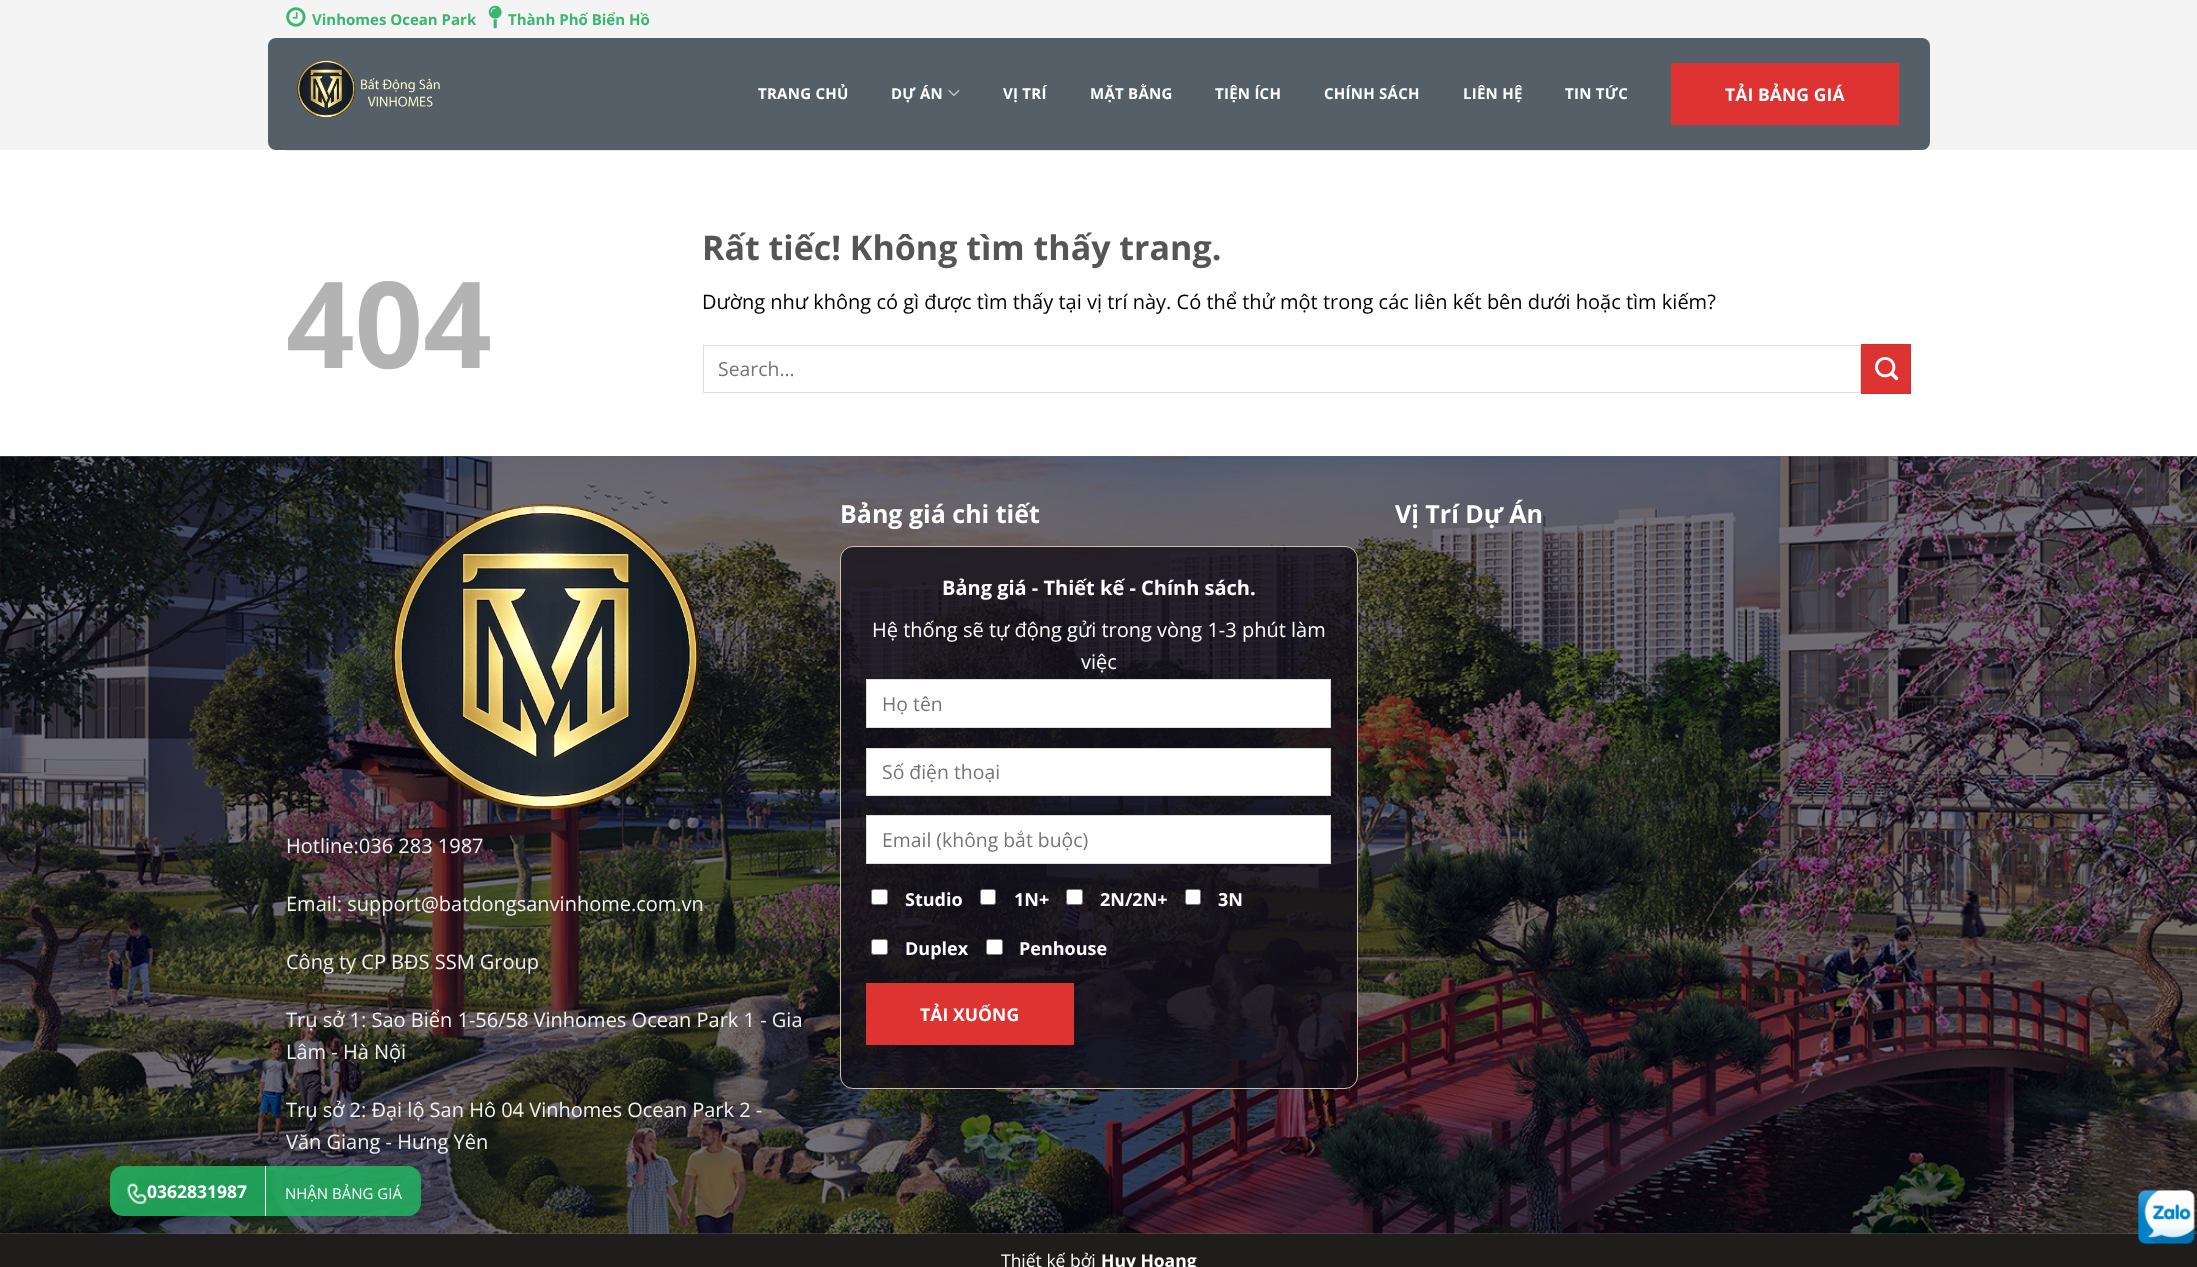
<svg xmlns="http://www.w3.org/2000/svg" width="2197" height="1267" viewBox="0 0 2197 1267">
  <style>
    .t1 { font: bold 17.5px Open Sans; fill: #fff; }
    .t2 { font: 15px Open Sans; fill: #fff; }
    .t3 { font: bold 15px Open Sans; fill: #3ab670; }
    .t4 { font: bold 15px Open Sans; letter-spacing: 0.25px; fill: #fff; }
    .t5 { font: bold 17.5px Open Sans; letter-spacing: 0.1px; fill: #fff; }
    .t6 { font: bold 120px Open Sans; fill: #b3b3b3; }
    .t7 { font: bold 34px Open Sans; fill: #555; }
    .t8 { font: 20px Open Sans; fill: #000; }
    .t9 { font: 19.4px Open Sans; fill: #757575; }
    .t10 { font: 20px Open Sans; fill: #f1f1f1; }
    .t11 { font: bold 25px Open Sans; fill: #fff; }
    .t12 { font: bold 20px Open Sans; fill: #fff; }
    .t13 { font: 20px Open Sans; fill: #fff; }
    .t14 { font: bold 18px Open Sans; fill: #fff; }
    .t15 { font: 17.5px Open Sans; fill: #fff; }
  </style>
  <rect width="100%" height="100%" fill="#fff"/>
  <rect x="0" y="456" width="2197" height="778" fill="#666"/>
  <image x="0" y="456" width="2197" height="778" href="images/7.png"/>
  <path d="M123 1166H266V1216H123C116 1216 110 1210 110 1203V1179C110 1172 116 1166 123 1166Z" fill="#23af60e3"/>
  <rect x="265" y="1166" width="1" height="50" fill="#fff"/>
  <image x="127" y="1183" width="20" height="21" href="images/1.png"/>
  <text x="147" y="1198" class="t1">0362831987</text>
  <path d="M266 1166H408C415 1166 421 1172 421 1179V1203C421 1210 415 1216 408 1216H266Z" fill="#23af60e3"/>
  <text x="285" y="1199" class="t2">NHẬN BẢNG GIÁ</text>
  <rect x="0" y="0" width="2197" height="150" fill="#f4f4f4"/>
  <image x="286" y="7" width="20" height="20" href="images/2.png"/>
  <text x="312" y="25" class="t3">Vinhomes Ocean Park</text>
  <image x="488" y="5" width="14" height="24" href="images/3.png"/>
  <text x="508" y="25" class="t3">Thành Phố Biển Hồ</text>
  <rect x="268" y="38" width="1662" height="112" rx="8" fill="#545f67"/>
  <image x="297" y="60" width="143" height="58" href="images/4.png"/>
  <text x="758" y="99" class="t4">TRANG CHỦ</text>
  <text x="891" y="99" class="t4">DỰ ÁN</text>
  <image x="948" y="89" width="12" height="8" href="images/5.png"/>
  <text x="1003" y="99" class="t4">VỊ TRÍ</text>
  <text x="1090" y="99" class="t4">MẶT BẰNG</text>
  <text x="1215" y="99" class="t4">TIỆN ÍCH</text>
  <text x="1324" y="99" class="t4">CHÍNH SÁCH</text>
  <text x="1463" y="99" class="t4">LIÊN HỆ</text>
  <text x="1565" y="99" class="t4">TIN TỨC</text>
  <rect x="1671" y="63" width="228" height="62" fill="#d33"/>
  <text x="1725" y="101" class="t5">TẢI BẢNG GIÁ</text>
  <rect x="286" y="150" width="1625" height="1" fill="#e6e6e6"/>
  <text x="286" y="368" class="t6">404</text>
  <text x="702" y="260" class="t7">Rất tiếc! Không tìm thấy trang.</text>
  <text x="702" y="309" class="t8">Dường như không có gì được tìm thấy tại vị trí này. Có thể thử một trong các liên kết bên dưới hoặc tìm kiếm?</text>
  <rect x="703.5" y="345.5" width="1157" height="47" fill="none" stroke="#ddd"/>
  <text x="718" y="376" class="t9">Search…</text>
  <rect x="1861.5" y="344.5" width="49" height="49" fill="#d33" stroke="#d23030"/>
  <image x="1875" y="356" width="24" height="25" href="images/6.png"/>
  <image x="391" y="504" width="309" height="306" href="images/8.png"/>
  <text x="286" y="853" class="t10">Hotline:036 283 1987</text>
  <text x="286" y="911" class="t10">Email: support@batdongsanvinhome.com.vn</text>
  <text x="286" y="969" class="t10">Công ty CP BĐS SSM Group</text>
  <text x="286" y="1027" class="t10">Trụ sở 1: Sao Biển 1-56/58 Vinhomes Ocean Park 1 - Gia</text>
  <text x="286" y="1059" class="t10">Lâm - Hà Nội</text>
  <text x="286" y="1117" class="t10">Trụ sở 2: Đại lộ San Hô 04 Vinhomes Ocean Park 2 -</text>
  <text x="286" y="1149" class="t10">Văn Giang - Hưng Yên</text>
  <text x="840" y="523" class="t11">Bảng giá chi tiết</text>
  <rect x="840.5" y="546.5" width="517" height="542" rx="12.5" fill="#120e19c9" stroke="#cec2ab"/>
  <text x="942" y="595" class="t12">Bảng giá - Thiết kế - Chính sách.</text>
  <text x="872" y="637" class="t13">Hệ thống sẽ tự động gửi trong vòng 1-3 phút làm</text>
  <text x="1081" y="669" class="t13">việc</text>
  <rect x="866.5" y="679.5" width="464" height="48" fill="#fff" stroke="#ddd"/>
  <text x="882" y="711" class="t9">Họ tên</text>
  <rect x="866.5" y="748.5" width="464" height="47" fill="#fff" stroke="#ddd"/>
  <text x="882" y="779" class="t9">Số điện thoại</text>
  <rect x="866.5" y="815.5" width="464" height="48" fill="#fff" stroke="#ddd"/>
  <text x="882" y="847" class="t9">Email (không bắt buộc)</text>
  <rect x="871.5" y="889.5" width="16" height="15" rx="2" fill="#fff" stroke="#767676"/>
  <text x="905" y="906" class="t14">Studio</text>
  <rect x="980.5" y="889.5" width="15" height="15" rx="2" fill="#fff" stroke="#767676"/>
  <text x="1014" y="906" class="t14">1N+</text>
  <rect x="1066.5" y="889.5" width="16" height="15" rx="2" fill="#fff" stroke="#767676"/>
  <text x="1100" y="906" class="t14">2N/2N+</text>
  <rect x="1185.5" y="889.5" width="15" height="15" rx="2" fill="#fff" stroke="#767676"/>
  <text x="1218" y="906" class="t14">3N</text>
  <rect x="871.5" y="939.5" width="16" height="15" rx="2" fill="#fff" stroke="#767676"/>
  <text x="905" y="955" class="t14">Duplex</text>
  <rect x="986.5" y="939.5" width="16" height="15" rx="2" fill="#fff" stroke="#767676"/>
  <text x="1019" y="955" class="t14">Penhouse</text>
  <rect x="866" y="983" width="208" height="62" fill="#d33"/>
  <text x="920" y="1021" class="t5">TẢI XUỐNG</text>
  <text x="1395" y="523" class="t11">Vị Trí Dự Án</text>
  <rect x="0" y="1234" width="2197" height="33" fill="#1e1d1c"/>
  <text x="1001" y="1267" class="t15">Thiết kế bởi</text>
  <text x="1101" y="1267" class="t1">Huy Hoang</text>
  <image x="2138" y="1189" width="57" height="55" href="images/9.png"/>
</svg>
